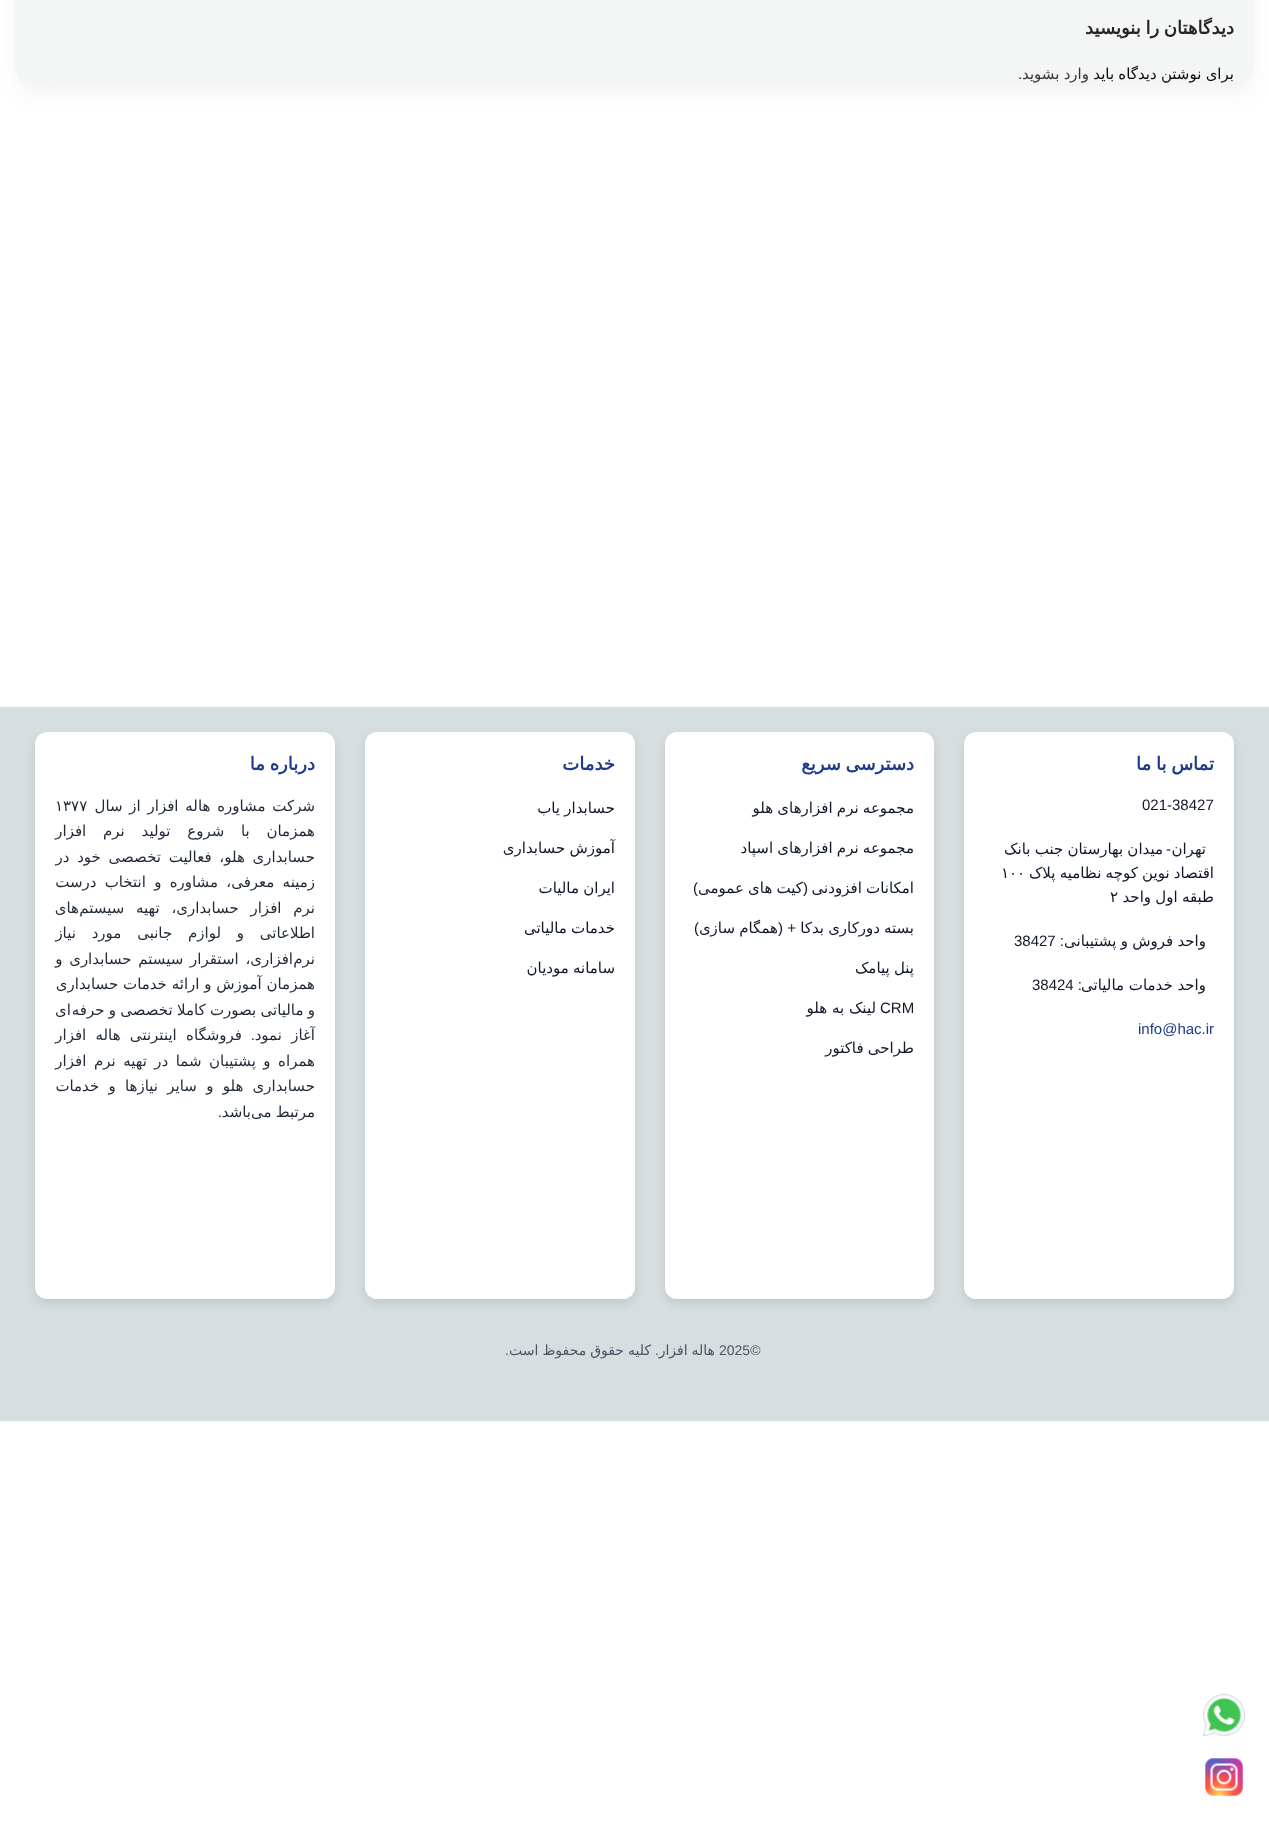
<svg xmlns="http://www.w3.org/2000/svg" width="1269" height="1822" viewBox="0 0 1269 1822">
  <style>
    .t1 { font: bold 18px DejaVu Sans; direction: rtl; fill: #242424; }
    .t2 { font: 15px DejaVu Sans; direction: rtl; fill: #0a0a0a; }
    .t3 { font: 15px DejaVu Sans; direction: rtl; fill: #333; }
    .t4 { font: 15px Liberation Sans; fill: #0a0a0a; }
    .t5 { font: bold 18px DejaVu Sans; direction: rtl; fill: #1e3a8a; }
    .t6 { font: 15px Liberation Sans; fill: #0f172a; }
    .t7 { font: 15px DejaVu Sans; direction: rtl; fill: #0f172a; }
    .t8 { font: 15px Liberation Sans; direction: rtl; fill: #0f172a; }
    .t9 { font: 15px DejaVu Sans; fill: #0f172a; }
    .t10 { font: 15px Liberation Sans; fill: #1e3a8a; }
    .t11 { font: 15px DejaVu Sans; direction: rtl; fill: #1f2937; }
    .t12 { font: 15px DejaVu Sans; fill: #1f2937; }
    .t13 { font: 15px Liberation Sans; direction: rtl; fill: #1f2937; }
    .t14 { font: 14px Liberation Sans; fill: #4b5563; }
    .t15 { font: 14px DejaVu Sans; direction: rtl; fill: #4b5563; }
    .t16 { font: 14px Liberation Sans; direction: rtl; fill: #4b5563; }
  </style>
  <rect width="100%" height="100%" fill="#fff"/>
  <rect x="15" y="-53" width="1239" height="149" rx="20" fill="#f3f6f4" filter="blur(11px)"/>
  <rect x="15" y="-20" width="1239" height="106" rx="20" fill="#f3f6f4"/>
  <text x="1234" y="34" word-spacing="-1" class="t1">دیدگاهتان را بنویسید</text>
  <text x="1234" y="79" word-spacing="-0.5" class="t2">برای نوشتن دیدگاه باید</text>
  <text x="1089" y="79" word-spacing="-0.5" class="t3">وارد بشوید</text>
  <text x="1018" y="79" class="t4">.</text>
  <rect x="0" y="707" width="1269" height="714" fill="#d7dee0"/>
  <rect x="964" y="736" width="270" height="567" rx="12" fill="#0000001a" filter="blur(5px)"/>
  <rect x="964" y="732" width="270" height="567" rx="12" fill="#fff"/>
  <text x="1214" y="770" word-spacing="-1" class="t5">تماس با ما</text>
  <text x="1142" y="810" class="t6">021-38427</text>
  <text x="1206" y="854" class="t7">تهران</text>
  <text x="1171" y="854" class="t8">-</text>
  <text x="1163" y="854" word-spacing="-0.5" class="t7">میدان بهارستان جنب بانک</text>
  <text x="1214" y="878" word-spacing="-0.5" class="t7">اقتصاد نوین کوچه نظامیه پلاک</text>
  <text x="1001" y="878" class="t9">۱۰۰</text>
  <text x="1214" y="902" word-spacing="-0.5" class="t7">طبقه اول واحد</text>
  <text x="1110" y="902" class="t9">۲</text>
  <text x="1206" y="946" word-spacing="-0.5" class="t7">واحد فروش و پشتیبانی</text>
  <text x="1064" y="946" class="t8">:</text>
  <text x="1014" y="946" class="t6">38427</text>
  <text x="1206" y="990" class="t7">واحد خدمات مالیاتی</text>
  <text x="1082" y="990" class="t8">:</text>
  <text x="1032" y="990" class="t6">38424</text>
  <text x="1138" y="1034" class="t10">info@hac.ir</text>
  <rect x="665" y="736" width="269" height="567" rx="12" fill="#0000001a" filter="blur(5px)"/>
  <rect x="665" y="732" width="269" height="567" rx="12" fill="#fff"/>
  <text x="914" y="770" word-spacing="-1" class="t5">دسترسی سریع</text>
  <text x="914" y="813" word-spacing="-0.5" class="t7">مجموعه نرم افزارهای هلو</text>
  <text x="914" y="853" word-spacing="-0.5" class="t7">مجموعه نرم افزارهای اسپاد</text>
  <text x="914" y="893" word-spacing="-0.5" class="t7">امکانات افزودنی</text>
  <text x="803" y="893" word-spacing="-0.5" class="t7">کیت های عمومی</text>
  <text x="808" y="893" class="t8">(</text>
  <text x="698" y="893" class="t8">)</text>
  <text x="914" y="933" class="t7">بسته</text>
  <text x="880" y="933" class="t7">دورکاری</text>
  <text x="824" y="933" class="t7">بدکا</text>
  <text x="796" y="933" class="t8">+ (</text>
  <text x="778" y="933" class="t7">همگام</text>
  <text x="735" y="933" class="t7">سازی</text>
  <text x="699" y="933" class="t8">)</text>
  <text x="914" y="973" word-spacing="-0.5" class="t7">پنل پیامک</text>
  <text x="880" y="1013" class="t6">CRM</text>
  <text x="876" y="1013" class="t7">لینک به هلو</text>
  <text x="914" y="1053" word-spacing="-0.5" class="t7">طراحی فاکتور</text>
  <rect x="365" y="736" width="270" height="567" rx="12" fill="#0000001a" filter="blur(5px)"/>
  <rect x="365" y="732" width="270" height="567" rx="12" fill="#fff"/>
  <text x="615" y="770" class="t5">خدمات</text>
  <text x="615" y="813" word-spacing="-0.5" class="t7">حسابدار یاب</text>
  <text x="615" y="853" word-spacing="-0.5" class="t7">آموزش حسابداری</text>
  <text x="615" y="893" word-spacing="-0.5" class="t7">ایران مالیات</text>
  <text x="615" y="933" word-spacing="-0.5" class="t7">خدمات مالیاتی</text>
  <text x="615" y="973" word-spacing="-0.5" class="t7">سامانه مودیان</text>
  <rect x="35" y="736" width="300" height="567" rx="12" fill="#0000001a" filter="blur(5px)"/>
  <rect x="35" y="732" width="300" height="567" rx="12" fill="#fff"/>
  <text x="315" y="770" word-spacing="-1" class="t5">درباره ما</text>
  <text x="315" y="811" word-spacing="2" class="t11">شرکت مشاوره هاله افزار از سال</text>
  <text x="55" y="811" class="t12">۱۳۷۷</text>
  <text x="315" y="836" word-spacing="12" class="t11">همزمان با شروع تولید نرم افزار</text>
  <text x="315" y="862" word-spacing="3" class="t11">حسابداری هلو، فعالیت تخصصی خود در</text>
  <text x="315" y="887" word-spacing="3.5" class="t11">زمینه معرفی، مشاوره و انتخاب درست</text>
  <text x="315" y="913" word-spacing="7" class="t11">نرم افزار حسابداری، تهیه سیستم</text>
  <text x="79" y="913" class="t11">های</text>
  <text x="315" y="938" word-spacing="11" class="t11">اطلاعاتی و لوازم جانبی مورد نیاز</text>
  <text x="315" y="964" class="t11">نرم</text>
  <text x="293" y="964" word-spacing="2" class="t11">افزاری، استقرار سیستم حسابداری و</text>
  <text x="315" y="989" class="t11">همزمان آموزش و ارائه خدمات حسابداری</text>
  <text x="315" y="1015" word-spacing="-0.5" class="t11">و مالیاتی بصورت کاملا تخصصی و حرفه</text>
  <text x="71" y="1015" class="t11">ای</text>
  <text x="315" y="1040" word-spacing="4.5" class="t11">آغاز نمود</text>
  <text x="255" y="1040" class="t13">.</text>
  <text x="242" y="1040" word-spacing="4.5" class="t11">فروشگاه اینترنتی هاله افزار</text>
  <text x="315" y="1066" word-spacing="2.75" class="t11">همراه و پشتیبان شما در تهیه نرم افزار</text>
  <text x="315" y="1091" word-spacing="4.5" class="t11">حسابداری هلو و سایر نیازها و خدمات</text>
  <text x="315" y="1117" word-spacing="-0.5" class="t11">مرتبط می</text>
  <text x="251" y="1117" class="t11">باشد</text>
  <text x="222" y="1117" class="t13">.</text>
  <text x="719" y="1355" class="t14">2025©</text>
  <text x="715" y="1355" word-spacing="-0.5" class="t15">هاله افزار</text>
  <text x="659" y="1355" class="t16">.</text>
  <text x="651" y="1355" word-spacing="-0.5" class="t15">کلیه حقوق محفوظ است</text>
  <text x="509" y="1355" class="t16">.</text>
  <image x="1203" y="1694" width="42" height="43" href="images/1.png"/>
  <image x="1205" y="1758" width="38" height="38" href="images/2.png"/>
</svg>
